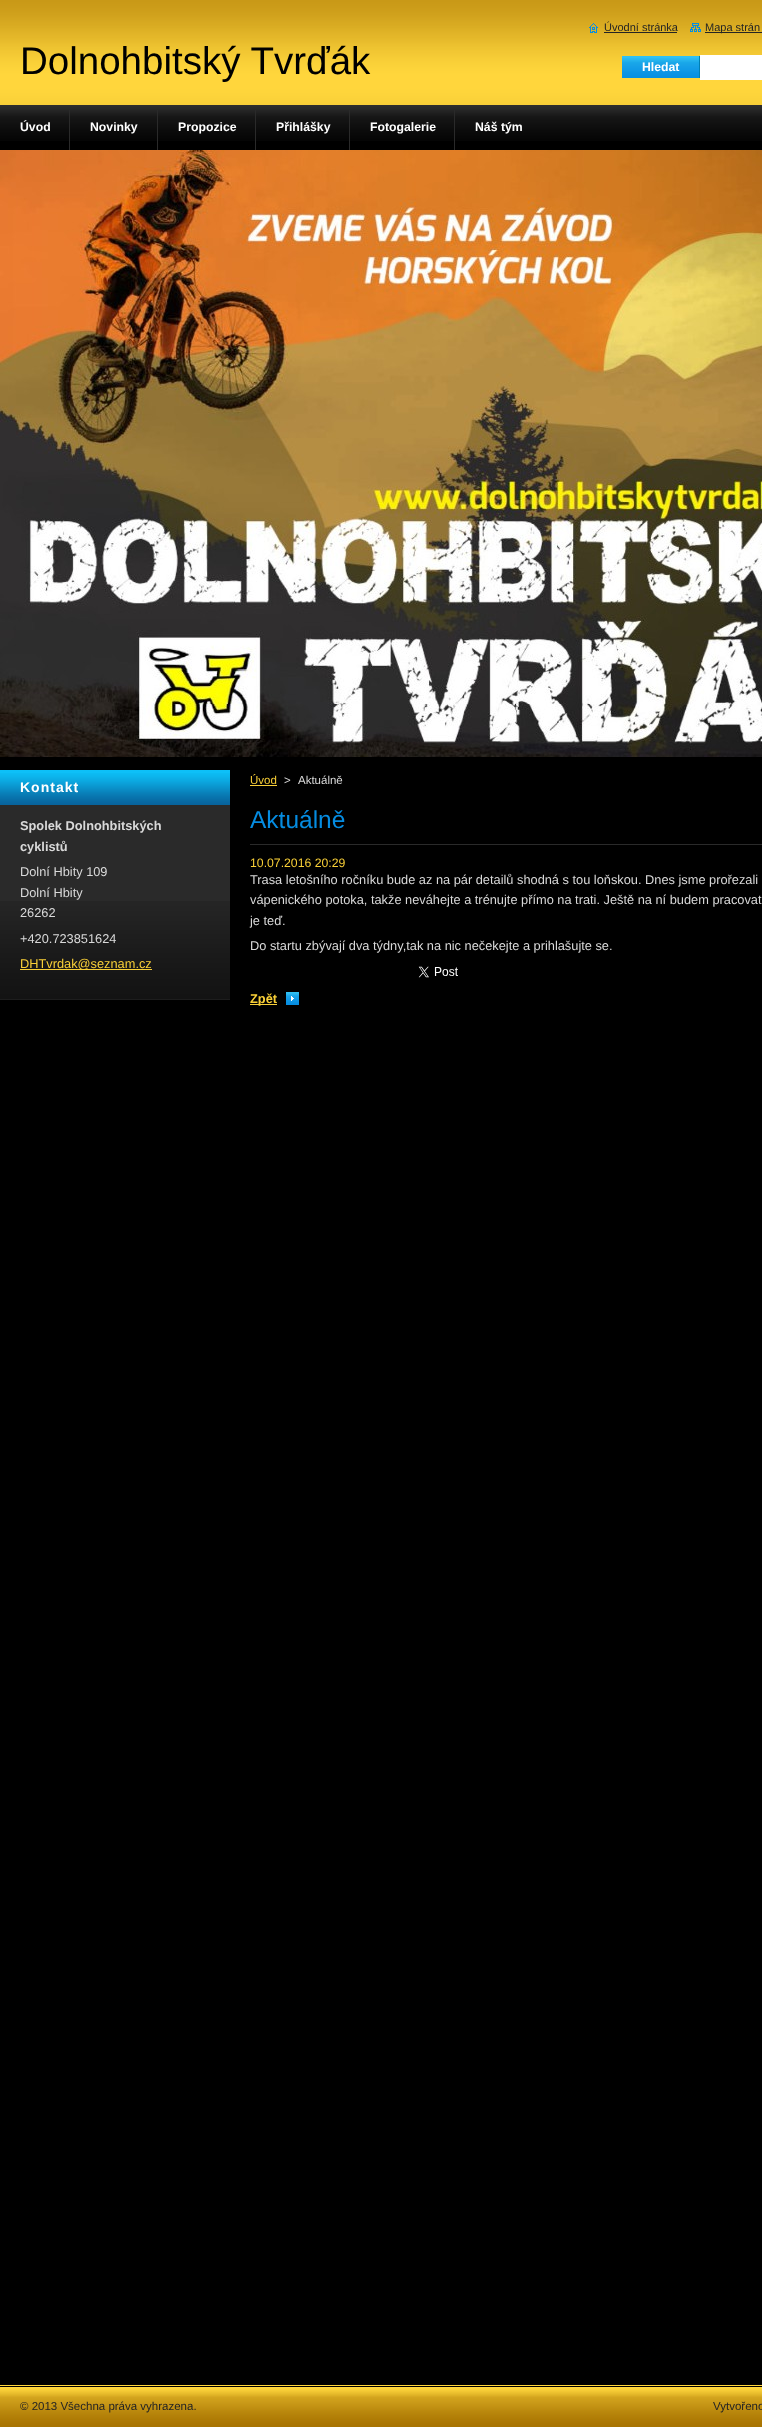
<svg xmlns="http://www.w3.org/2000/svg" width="762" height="2427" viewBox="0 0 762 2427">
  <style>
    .t1 { font: 11px Liberation Sans; fill: #242424; }
    .t2 { font: 38.5px Liberation Sans; fill: #000; }
    .t3 { font: bold 12.25px Liberation Sans; fill: #fff; }
    .t4 { font: bold 14px Liberation Sans; letter-spacing: 1px; fill: #fff; }
    .t5 { font: bold 12.8px Liberation Sans; fill: #d9d9d9; }
    .t6 { font: 12.8px Liberation Sans; fill: #d9d9d9; }
    .t7 { font: 12.8px Liberation Sans; fill: #f8cf37; }
    .t8 { font: 11.5px Liberation Sans; fill: #f8cf37; }
    .t9 { font: 11.5px Liberation Sans; fill: #d9d9d9; }
    .t10 { font: 24.5px Liberation Sans; fill: #058ce1; }
    .t11 { font: 12.25px Liberation Sans; fill: #f8cf37; }
    .t12 { font: bold 12.8px Liberation Sans; fill: #f8cf37; }
    .t13 { font: 11.5px Liberation Sans; fill: #242424; }
  </style>
  <rect width="100%" height="100%" fill="#000"/>
  <image x="0" y="0" width="762" height="105" href="images/1.png"/>
  <image x="589" y="23" width="9" height="10" href="images/2.png"/>
  <text x="604" y="31" class="t1">Úvodní stránka</text>
  <rect x="604" y="32" width="73" height="1" fill="#242424"/>
  <image x="690" y="23" width="11" height="9" href="images/3.png"/>
  <rect x="705" y="32" width="57" height="1" fill="#242424"/>
  <text x="705" y="31" class="t1">Mapa strán</text>
  <text x="20" y="74" class="t2">Dolnohbitský Tvrďák</text>
  <rect x="622" y="56" width="77" height="2" fill="#31c1f3"/>
  <image x="622" y="58" width="77" height="20" href="images/4.png"/>
  <rect x="699" y="56" width="1" height="22" fill="#007fb2"/>
  <text x="642" y="71" class="t3">Hledat</text>
  <rect x="700" y="55" width="62" height="25" fill="#fff"/>
  <image x="0" y="105" width="762" height="36" href="images/5.png"/>
  <rect x="69" y="110" width="1" height="40" fill="#2a2a2a"/>
  <text x="20" y="131" class="t3">Úvod</text>
  <rect x="157" y="110" width="1" height="40" fill="#2a2a2a"/>
  <text x="90" y="131" class="t3">Novinky</text>
  <rect x="255" y="110" width="1" height="40" fill="#2a2a2a"/>
  <text x="178" y="131" class="t3">Propozice</text>
  <rect x="349" y="110" width="1" height="40" fill="#2a2a2a"/>
  <text x="276" y="131" class="t3">Přihlášky</text>
  <rect x="454" y="110" width="1" height="40" fill="#2a2a2a"/>
  <text x="370" y="131" class="t3">Fotogalerie</text>
  <text x="475" y="131" class="t3">Náš tým</text>
  <image x="0" y="150" width="762" height="607" href="images/6.png"/>
  <rect x="0" y="805" width="230" height="96" fill="#2a2a2a"/>
  <image x="0" y="901" width="230" height="99" href="images/7.png"/>
  <rect x="0" y="770" width="230" height="3" fill="#0dc0f8"/>
  <image x="0" y="773" width="230" height="32" href="images/8.png"/>
  <text x="20" y="792" class="t4">Kontakt</text>
  <text x="20" y="830" class="t5">Spolek Dolnohbitských</text>
  <text x="20" y="851" class="t5">cyklistů</text>
  <text x="20" y="876" class="t6">Dolní Hbity 109</text>
  <text x="20" y="897" class="t6">Dolní Hbity</text>
  <text x="20" y="917" class="t6">26262</text>
  <text x="20" y="943" class="t6">+420.723851624</text>
  <rect x="20" y="969" width="132" height="1" fill="#f8cf37"/>
  <text x="20" y="968" class="t7">DHTvrdak@seznam.cz</text>
  <text x="250" y="784" class="t8">Úvod</text>
  <rect x="250" y="785" width="27" height="1" fill="#f8cf37"/>
  <text x="284" y="784" class="t9">&gt;</text>
  <text x="298" y="784" class="t9">Aktuálně</text>
  <rect x="250" y="844" width="512" height="1" fill="#2a2a2a"/>
  <text x="250" y="828" class="t10">Aktuálně</text>
  <text x="250" y="867" class="t11">10.07.2016 20:29</text>
  <text x="250" y="884" class="t6">Trasa letošního ročníku bude az na pár detailů shodná s tou loňskou. Dnes jsme prořezali</text>
  <text x="250" y="904" class="t6">vápenického potoka, takže neváhejte a trénujte přímo na trati. Ještě na ní budem pracovat</text>
  <text x="250" y="925" class="t6">je teď.</text>
  <text x="250" y="950" class="t6">Do startu zbývají dva týdny,tak na nic nečekejte a prihlašujte se.</text>
  <image x="418" y="966" width="40" height="12" href="images/9.png"/>
  <image x="286" y="992" width="13" height="13" href="images/10.png"/>
  <rect x="250" y="1004" width="27" height="1" fill="#f8cf37"/>
  <text x="250" y="1003" class="t12">Zpět</text>
  <rect x="0" y="2385" width="762" height="1" fill="#ffd63c"/>
  <image x="0" y="2386" width="762" height="41" href="images/11.png"/>
  <text x="20" y="2410" class="t13">© 2013 Všechna práva vyhrazena.</text>
  <text x="713" y="2410" class="t13">Vytvořeno</text>
</svg>
